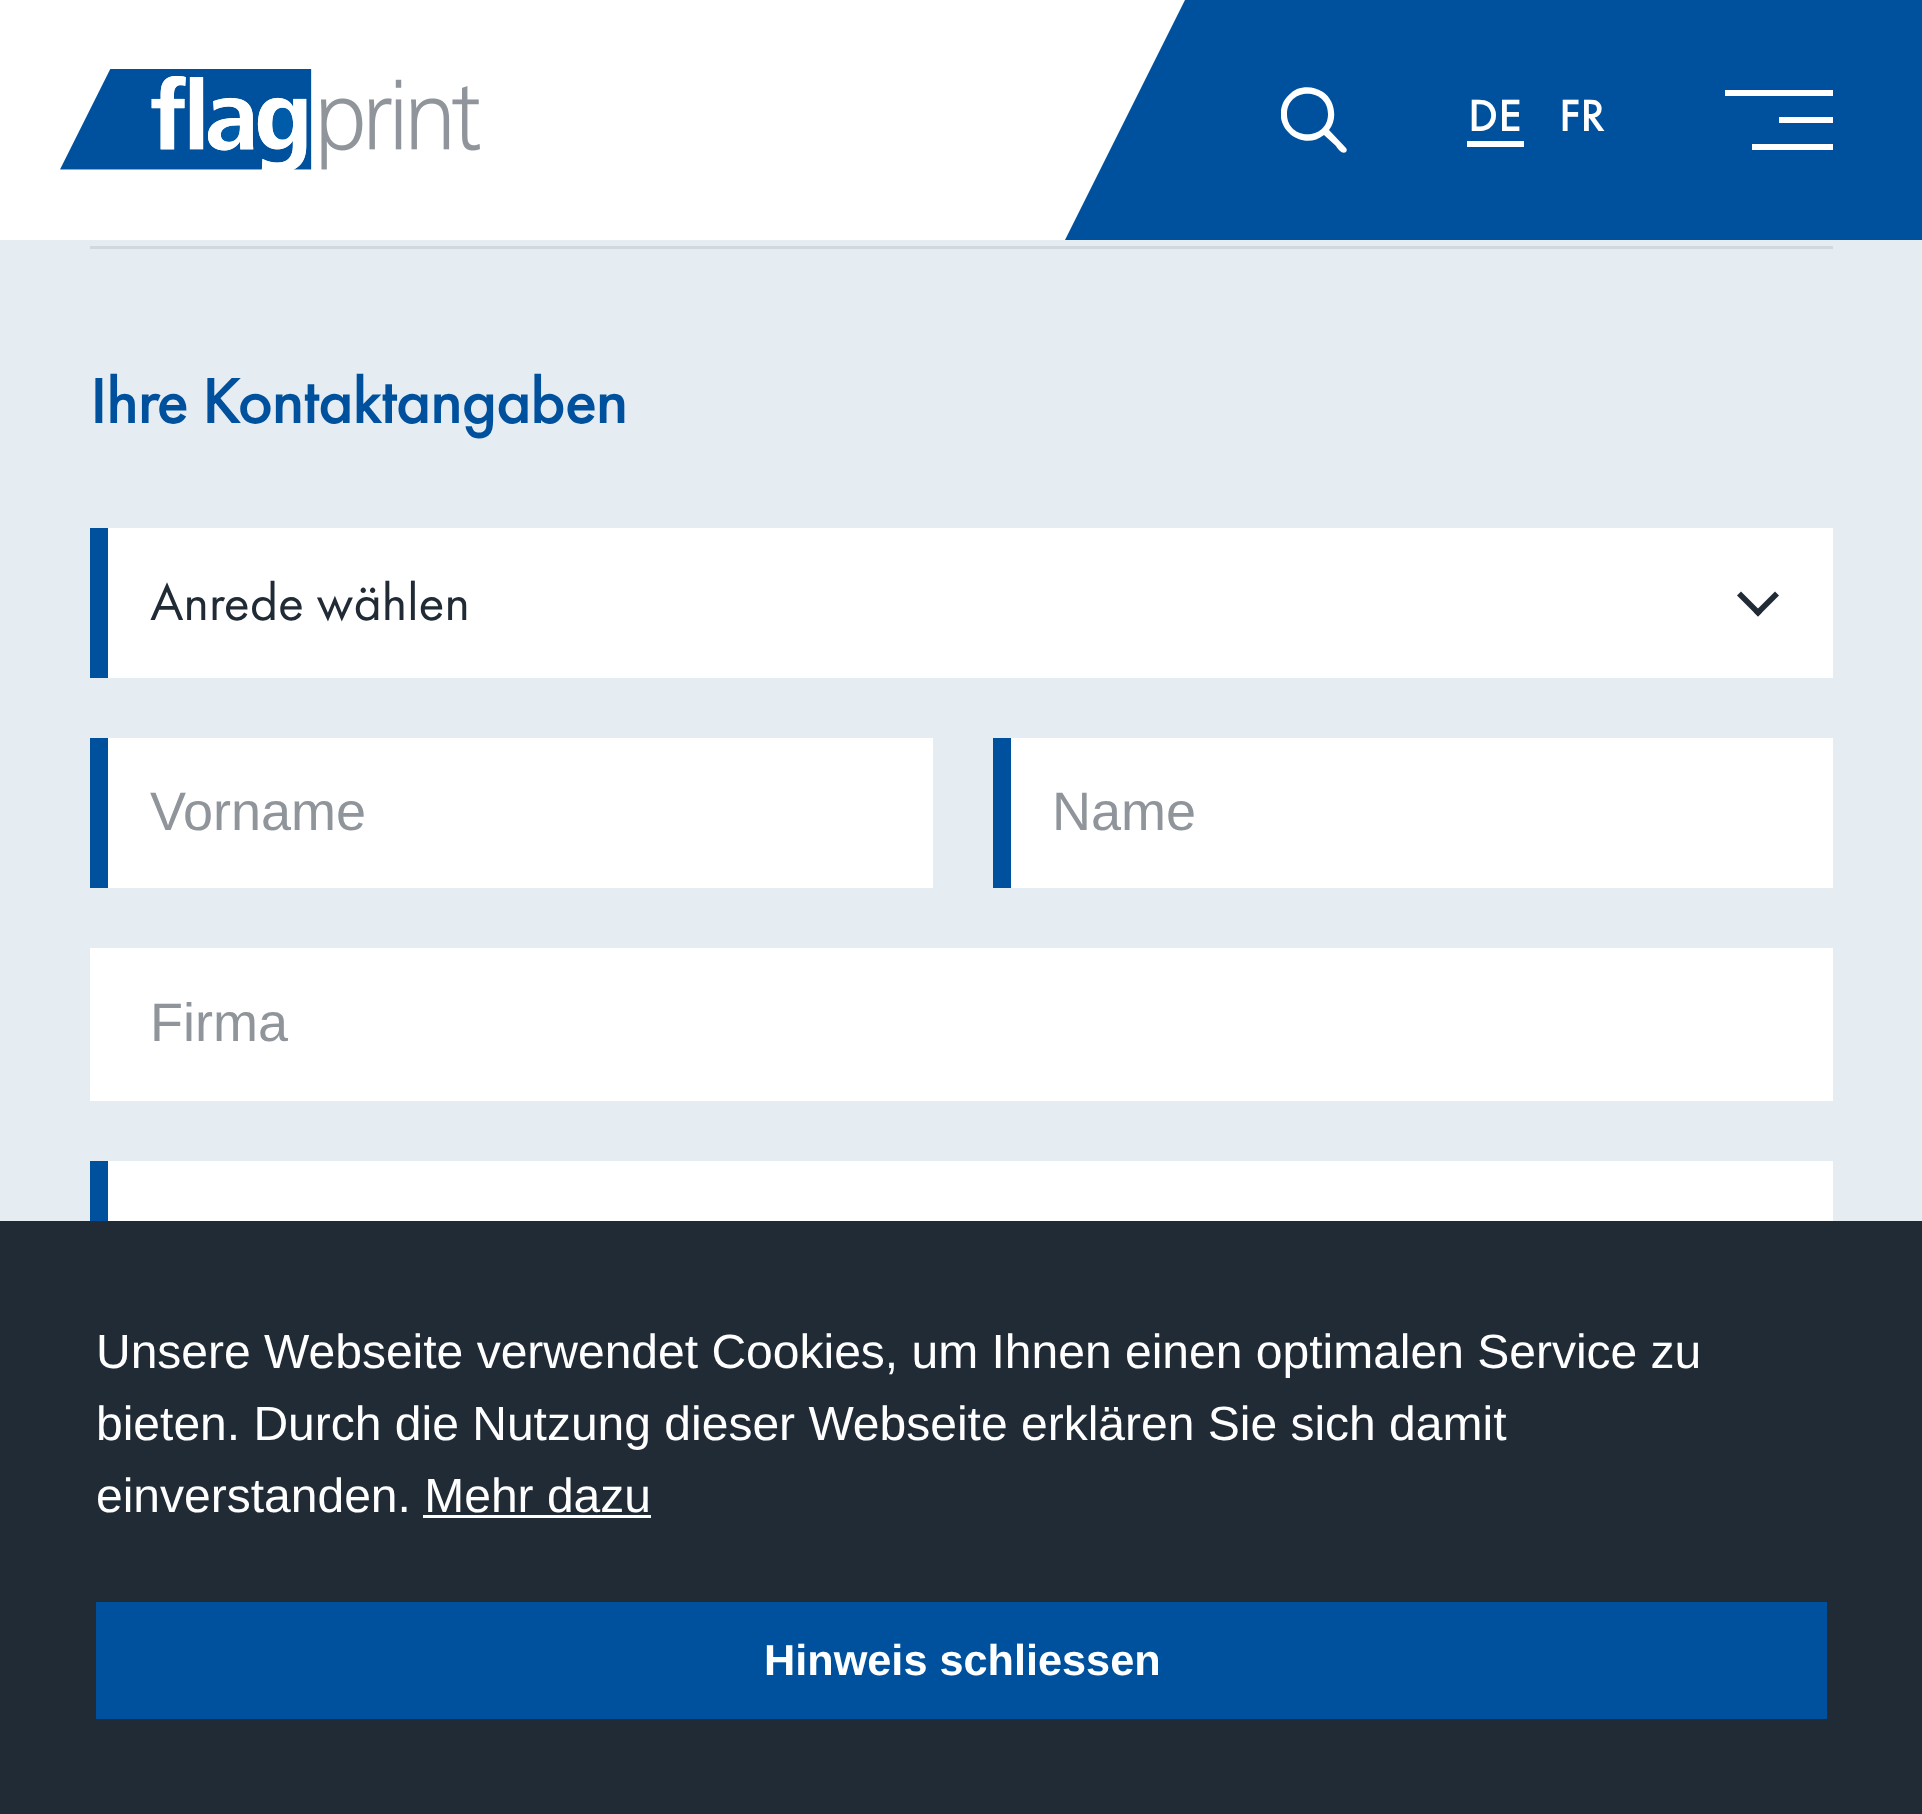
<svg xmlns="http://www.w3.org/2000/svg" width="1922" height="1814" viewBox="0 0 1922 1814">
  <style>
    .t1 { font: 500 47px Futura PT; fill: #fff; }
    .t2 { font: 500 67.5px Futura PT; letter-spacing: -1.4px; fill: #00519d; }
    .t3 { font: 54px Futura PT; fill: #202b36; }
    .t4 { font: 54px Liberation Sans; fill: #8f959a; }
    .t5 { font: 48px Liberation Sans; fill: #fff; }
    .t6 { font: bold 43.25px Liberation Sans; fill: #fff; }
  </style>
  <defs>
    <clipPath id="clip1"><rect x="1281" y="87" width="66" height="66"/></clipPath>
  </defs>
  <rect width="100%" height="100%" fill="#e5ecf2"/>
  <rect x="0" y="0" width="1185" height="240" fill="#fff"/>
  <image x="60" y="69" width="420" height="101" href="images/1.png"/>
  <path d="M1185 0H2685L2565 240H1065Z" fill="#00519d"/>
  <rect x="1725" y="90" width="108" height="6" fill="#fff"/>
  <rect x="1779" y="117" width="54" height="6" fill="#fff"/>
  <rect x="1752" y="144" width="81" height="6" fill="#fff"/>
  <g clip-path="url(#clip1)">
    <path d="M1346 148L1329 130C1338 119 1335 100 1323 92C1315 87 1306 86 1297 89C1291 92 1286 97 1283 103C1272 129 1303 152 1324 135L1336 146C1337 148 1342 155 1346 152C1347 151 1347 149 1346 148ZM1287 114C1287 87 1328 87 1328 114C1328 141 1287 141 1287 114Z" fill="#fff"/>
  </g>
  <text x="1468" y="131" class="t1">DE</text>
  <rect x="1467" y="141" width="57" height="6" fill="#fff"/>
  <text x="1559" y="131" class="t1">FR</text>
  <rect x="90" y="246" width="1743" height="3" fill="#d1d9df"/>
  <text x="90" y="423" class="t2">Ihre Kontaktangaben</text>
  <rect x="90" y="528" width="18" height="150" fill="#00519d"/>
  <rect x="108" y="528" width="1725" height="150" fill="#fff"/>
  <text x="150" y="620" class="t3">Anrede wählen</text>
  <path d="M1775 591.5L1779 595.5L1758 616.5L1754 612.5Z" fill="#202b36"/>
  <path d="M1741 591.5L1762 612.5L1758 616.5L1737 595.5Z" fill="#202b36"/>
  <rect x="90" y="738" width="18" height="150" fill="#00519d"/>
  <rect x="108" y="738" width="825" height="150" fill="#fff"/>
  <text x="150" y="830" class="t4">Vorname</text>
  <rect x="993" y="738" width="18" height="150" fill="#00519d"/>
  <rect x="1011" y="738" width="822" height="150" fill="#fff"/>
  <text x="1052" y="830" class="t4">Name</text>
  <rect x="90" y="948" width="1743" height="153" fill="#fff"/>
  <text x="150" y="1041" class="t4">Firma</text>
  <rect x="90" y="1161" width="18" height="60" fill="#00519d"/>
  <rect x="108" y="1161" width="1725" height="60" fill="#fff"/>
  <rect x="0" y="1221" width="1922" height="593" fill="#202b36"/>
  <text x="96" y="1368" class="t5">Unsere Webseite verwendet Cookies, um Ihnen einen optimalen Service zu</text>
  <text x="96" y="1440" class="t5">bieten. Durch die Nutzung dieser Webseite erklären Sie sich damit</text>
  <text x="96" y="1512" class="t5">einverstanden. Mehr dazu</text>
  <rect x="423" y="1515" width="228" height="3" fill="#fff"/>
  <rect x="96" y="1602" width="1731" height="117" fill="#00519d"/>
  <text x="764" y="1675" class="t6">Hinweis schliessen</text>
</svg>
